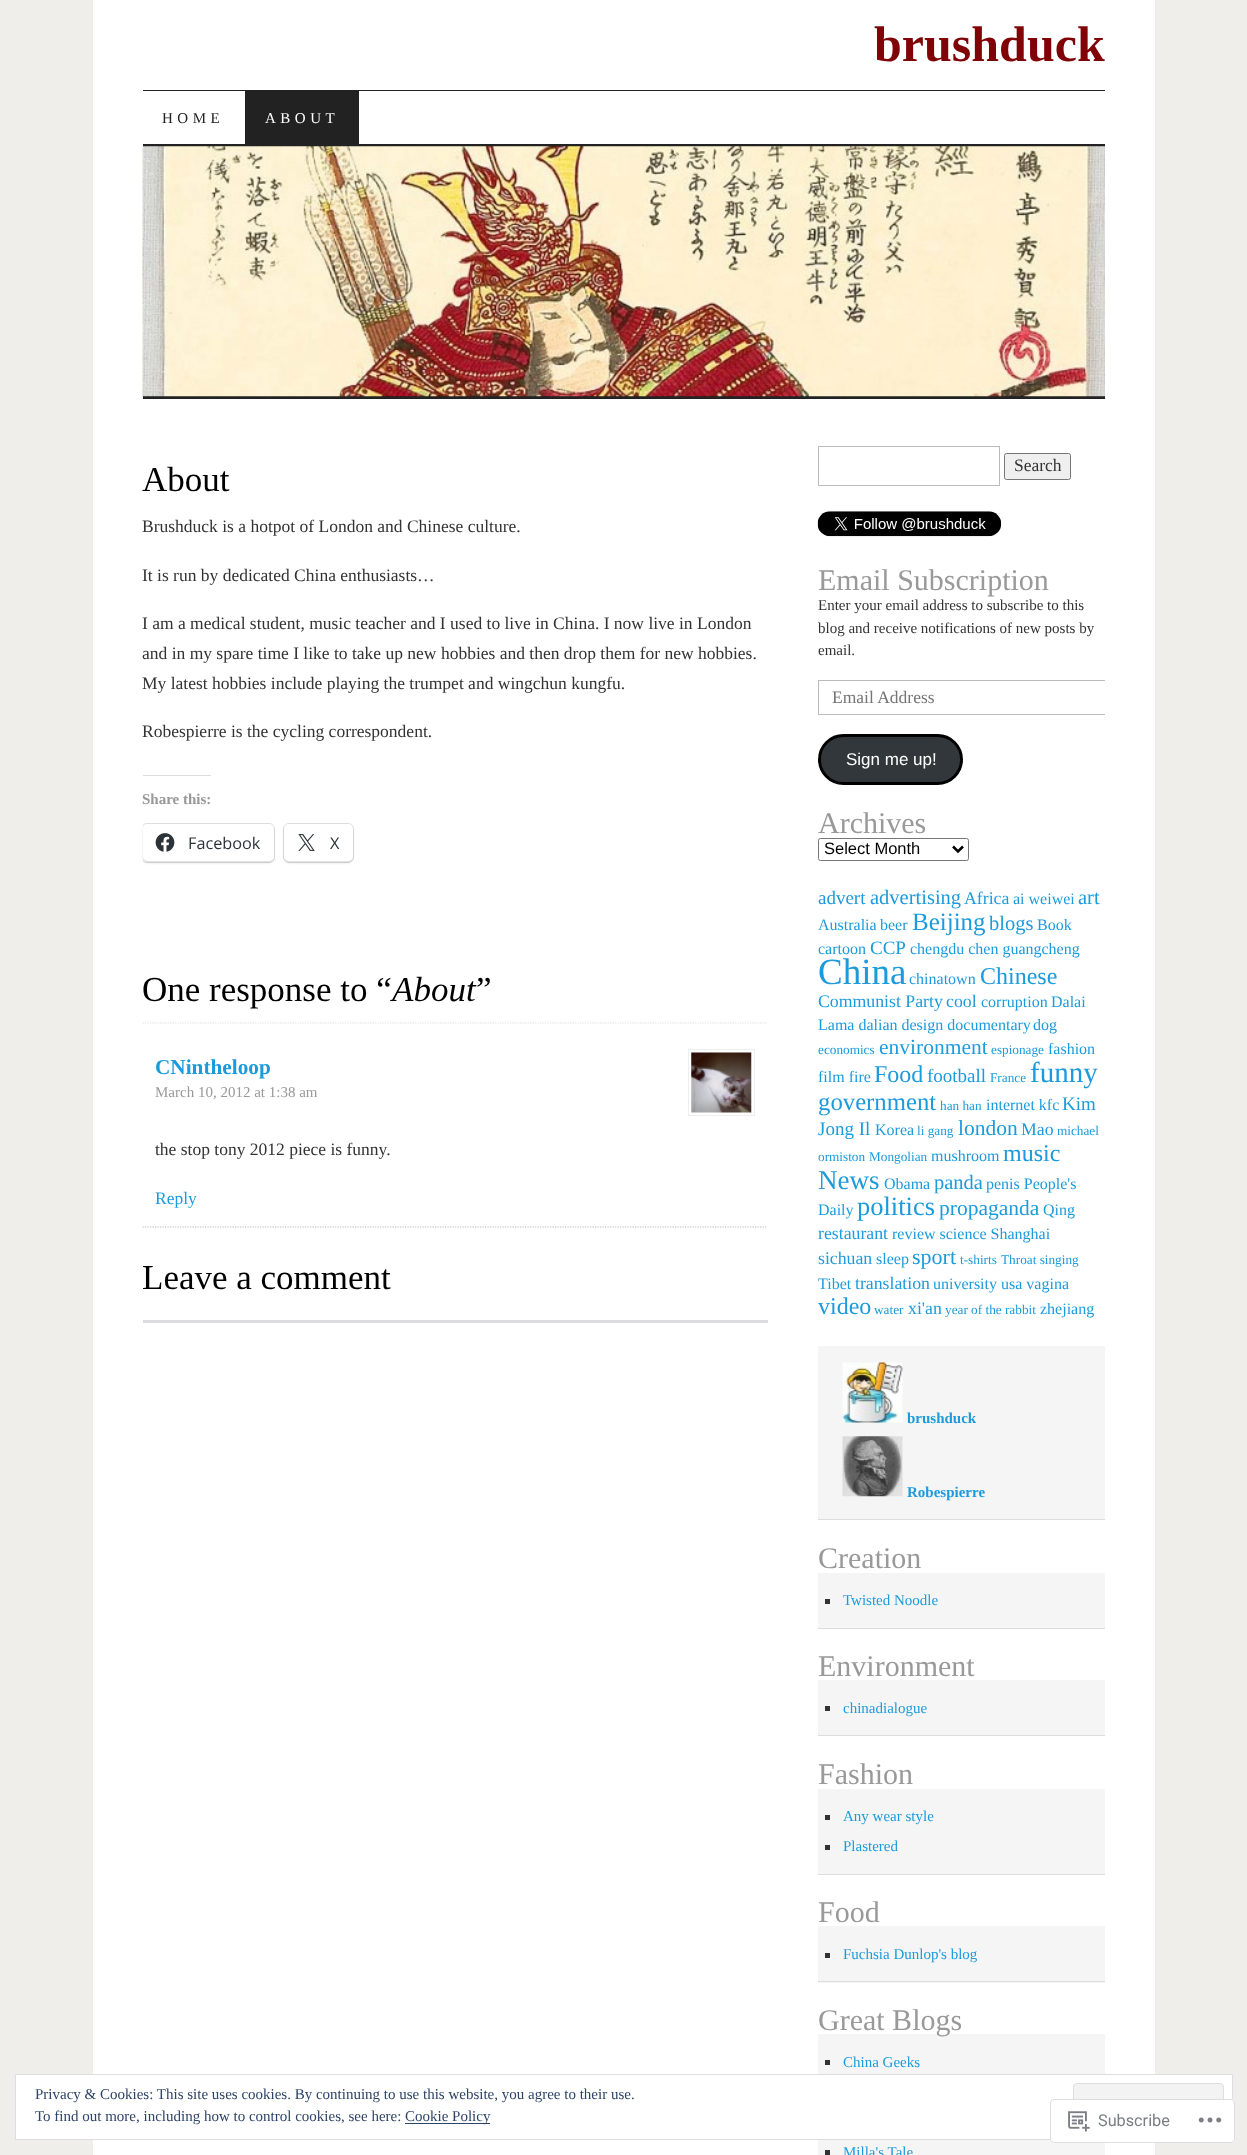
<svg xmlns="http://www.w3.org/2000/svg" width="1247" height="2155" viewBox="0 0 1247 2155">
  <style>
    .t1 { font: bold 50px Liberation Serif; fill: #7f0307; }
    .t2 { font: 15px Liberation Serif; letter-spacing: 4.5px; fill: #222; }
    .t3 { font: 15px Liberation Serif; letter-spacing: 4.5px; fill: #fff; }
    .t4 { font: 35px Liberation Serif; fill: #000; }
    .t5 { font: 17.5px Liberation Serif; fill: #333; }
    .t6 { font: bold 15px Liberation Serif; fill: #999; }
    .t7 { font: 16.25px Open Sans; fill: #2c3338; }
    .t8 { font: italic 35px Liberation Serif; fill: #000; }
    .t9 { font: bold 21.25px Liberation Serif; fill: #1c9bdc; }
    .t10 { font: 15px Liberation Serif; fill: #999; }
    .t11 { font: 17.5px Liberation Serif; fill: #1c9bdc; }
    .t12 { font: 30px Liberation Serif; fill: #999; }
    .t13 { font: 15px Liberation Serif; fill: #333; }
    .t14 { font: 17.5px Liberation Serif; fill: #757575; }
    .t15 { font: 17px Liberation Sans; fill: #fff; }
    .t16 { font: 16.5px Liberation Sans; fill: #000; }
    .t17 { font: 19px Liberation Serif; fill: #1c9bdc; }
    .t18 { font: 20.5px Liberation Serif; fill: #1c9bdc; }
    .t19 { font: 17.75px Liberation Serif; fill: #1c9bdc; }
    .t20 { font: 16px Liberation Serif; fill: #1c9bdc; }
    .t21 { font: 25px Liberation Serif; fill: #1c9bdc; }
    .t22 { font: 37px Liberation Serif; fill: #1c9bdc; }
    .t23 { font: 24px Liberation Serif; fill: #1c9bdc; }
    .t24 { font: 13.25px Liberation Serif; fill: #1c9bdc; }
    .t25 { font: 21.5px Liberation Serif; fill: #1c9bdc; }
    .t26 { font: 29px Liberation Serif; fill: #1c9bdc; }
    .t27 { font: 24.75px Liberation Serif; fill: #1c9bdc; }
    .t28 { font: 27px Liberation Serif; fill: #1c9bdc; }
    .t29 { font: 26.5px Liberation Serif; fill: #1c9bdc; }
    .t30 { font: 22px Liberation Serif; fill: #1c9bdc; }
    .t31 { font: bold 15px Liberation Serif; fill: #1c9bdc; }
    .t32 { font: 15px Liberation Serif; fill: #1c9bdc; }
    .t33 { font: 15px Liberation Serif; fill: #2e4467; }
    .t34 { font: 16.25px Roboto; fill: #7b7f84; }
  </style>
  <defs>
    <clipPath id="clip1"><rect x="143" y="446" width="625" height="877"/></clipPath>
    <clipPath id="clip2"><rect x="818" y="446" width="287" height="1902"/></clipPath>
  </defs>
  <rect width="100%" height="100%" fill="#efeeeb"/>
  <rect x="93" y="0" width="1062" height="2155" fill="#fff"/>
  <text x="874" y="61" class="t1">brushduck</text>
  <rect x="143" y="90" width="962" height="1" fill="#222"/>
  <rect x="143" y="144" width="962" height="3" fill="#222"/>
  <text x="162" y="123" class="t2">HOME</text>
  <rect x="245" y="91" width="114" height="53" fill="#222"/>
  <text x="265" y="123" class="t3">ABOUT</text>
  <rect x="143" y="396" width="962" height="3" fill="#222"/>
  <image x="142" y="146" width="963" height="251" href="images/1.png"/>
  <text x="142" y="491" class="t4">About</text>
  <text x="142" y="532" class="t5">Brushduck is a hotpot of London and Chinese culture.</text>
  <text x="142" y="581" class="t5">It is run by dedicated China enthusiasts…</text>
  <text x="142" y="629" class="t5">I am a medical student, music teacher and I used to live in China. I now live in London</text>
  <text x="142" y="659" class="t5">and in my spare time I like to take up new hobbies and then drop them for new hobbies.</text>
  <text x="142" y="689" class="t5">My latest hobbies include playing the trumpet and wingchun kungfu.</text>
  <text x="142" y="737" class="t5">Robespierre is the cycling correspondent.</text>
  <rect x="143" y="775" width="68" height="1" fill="#dcdcde"/>
  <text x="142" y="804" class="t6">Share this:</text>
  <g clip-path="url(#clip1)">
    <rect x="141.5" y="823.5" width="133" height="39" rx="5.5" fill="none" stroke="#e0e0e0"/>
  </g>
  <rect x="143" y="825" width="131" height="38" rx="5" fill="#0000001f" filter="blur(1px)"/>
  <rect x="143" y="824" width="131" height="37" rx="5" fill="#fff"/>
  <image x="155" y="833" width="20" height="19" href="images/2.png"/>
  <text x="188" y="849" class="t7">Facebook</text>
  <rect x="283.5" y="823.5" width="70" height="39" rx="5.5" fill="none" stroke="#e0e0e0"/>
  <rect x="284" y="825" width="69" height="38" rx="5" fill="#0000001f" filter="blur(1px)"/>
  <rect x="284" y="824" width="69" height="37" rx="5" fill="#fff"/>
  <image x="298" y="834" width="17" height="17" href="images/3.png"/>
  <text x="330" y="849" class="t7">X</text>
  <path d="M142.5 1023H767.5" fill="none" stroke="#ddd" stroke-width="1.2" stroke-dasharray="1.25 1.25"/>
  <text x="142" y="1001" class="t4">One response to “</text>
  <text x="392" y="1001" class="t8">About</text>
  <text x="476" y="1001" class="t4">”</text>
  <path d="M142.5 1227H767.5" fill="none" stroke="#bbb" stroke-width="1.2" stroke-dasharray="1.25 1.25"/>
  <text x="155" y="1074" class="t9">CNintheloop</text>
  <rect x="688.5" y="1049.5" width="66" height="66" fill="none" stroke="#eee"/>
  <image x="691" y="1052" width="61" height="61" href="images/4.png"/>
  <text x="155" y="1097" class="t10">March 10, 2012 at 1:38 am</text>
  <text x="155" y="1155" class="t5">the stop tony 2012 piece is funny.</text>
  <text x="155" y="1204" class="t11">Reply</text>
  <text x="142" y="1289" class="t4">Leave a comment</text>
  <rect x="143" y="1320" width="625" height="3" fill="#dcdcde"/>
  <rect x="818.5" y="446.5" width="181" height="39" fill="none" stroke="#bbb"/>
  <rect x="1004.5" y="453.5" width="66" height="26" rx="2" fill="#efefef" stroke="#767676"/>
  <text x="1014" y="471" class="t5">Search</text>
  <image x="817" y="511" width="185" height="26" href="images/5.png"/>
  <text x="818" y="590" class="t12">Email Subscription</text>
  <text x="818" y="610" class="t13">Enter your email address to subscribe to this</text>
  <text x="818" y="633" class="t13">blog and receive notifications of new posts by</text>
  <text x="818" y="655" class="t13">email.</text>
  <g clip-path="url(#clip2)">
    <rect x="818.5" y="680.5" width="299" height="34" fill="none" stroke="#bbb"/>
  </g>
  <text x="832" y="703" class="t14">Email Address</text>
  <rect x="819.5" y="735.5" width="142" height="48" rx="24" fill="#32373c" stroke="#000" stroke-width="3"/>
  <text x="846" y="765" class="t15">Sign me up!</text>
  <text x="818" y="833" class="t12">Archives</text>
  <rect x="818.5" y="838.5" width="150" height="22" rx="2" fill="none" stroke="#767676"/>
  <path d="M953 846.5L958 851.5L963 846.5" fill="none" stroke="#000" stroke-width="2.5"/>
  <text x="824" y="854" class="t16">Select Month</text>
  <text x="818" y="904" class="t17">advert</text>
  <text x="870" y="904" class="t18">advertising</text>
  <text x="964" y="904" class="t19">Africa</text>
  <text x="1013" y="904" class="t20">ai weiwei</text>
  <text x="1078" y="904" class="t18">art</text>
  <text x="818" y="930" class="t20">Australia</text>
  <text x="880" y="930" class="t20">beer</text>
  <text x="912" y="930" class="t21">Beijing</text>
  <text x="989" y="930" class="t18">blogs</text>
  <text x="1037" y="930" class="t20">Book</text>
  <text x="818" y="954" class="t20">cartoon</text>
  <text x="870" y="954" class="t17">CCP</text>
  <text x="910" y="954" class="t20">chengdu chen guangcheng</text>
  <text x="818" y="984" class="t22">China</text>
  <text x="909" y="984" class="t20">chinatown</text>
  <text x="980" y="984" class="t23">Chinese</text>
  <text x="818" y="1007" class="t19">Communist Party</text>
  <text x="946" y="1007" class="t19">cool</text>
  <text x="981" y="1007" class="t20">corruption</text>
  <text x="1051" y="1007" class="t20">Dalai</text>
  <text x="818" y="1030" class="t20">Lama dalian design documentary</text>
  <text x="1033" y="1030" class="t20">dog</text>
  <text x="818" y="1054" class="t24">economics</text>
  <text x="879" y="1054" class="t25">environment</text>
  <text x="991" y="1054" class="t24">espionage</text>
  <text x="1048" y="1054" class="t20">fashion</text>
  <text x="818" y="1082" class="t20">film fire</text>
  <text x="874" y="1082" class="t23">Food</text>
  <text x="927" y="1082" class="t17">football</text>
  <text x="990" y="1082" class="t24">France</text>
  <text x="1030" y="1082" class="t26">funny</text>
  <text x="818" y="1110" class="t27">government</text>
  <text x="940" y="1110" class="t24">han han</text>
  <text x="986" y="1110" class="t20">internet kfc</text>
  <text x="1062" y="1110" class="t17">Kim</text>
  <text x="818" y="1135" class="t17">Jong Il</text>
  <text x="875" y="1135" class="t20">Korea</text>
  <text x="917" y="1135" class="t24">li gang</text>
  <text x="958" y="1135" class="t25">london</text>
  <text x="1021" y="1135" class="t19">Mao</text>
  <text x="1057" y="1135" class="t24">michael</text>
  <text x="818" y="1161" class="t24">ormiston</text>
  <text x="869" y="1161" class="t24">Mongolian</text>
  <text x="931" y="1161" class="t20">mushroom</text>
  <text x="1003" y="1161" class="t23">music</text>
  <text x="818" y="1189" class="t28">News</text>
  <text x="884" y="1189" class="t20">Obama</text>
  <text x="934" y="1189" class="t18">panda</text>
  <text x="986" y="1189" class="t20">penis People's</text>
  <text x="818" y="1215" class="t20">Daily</text>
  <text x="857" y="1215" class="t29">politics</text>
  <text x="939" y="1215" class="t25">propaganda</text>
  <text x="1043" y="1215" class="t20">Qing</text>
  <text x="818" y="1239" class="t19">restaurant</text>
  <text x="892" y="1239" class="t20">review science Shanghai</text>
  <text x="818" y="1264" class="t19">sichuan</text>
  <text x="876" y="1264" class="t20">sleep</text>
  <text x="912" y="1264" class="t30">sport</text>
  <text x="960" y="1264" class="t24">t-shirts</text>
  <text x="1001" y="1264" class="t24">Throat singing</text>
  <text x="818" y="1289" class="t20">Tibet</text>
  <text x="855" y="1289" class="t19">translation</text>
  <text x="933" y="1289" class="t20">university</text>
  <text x="1001" y="1289" class="t20">usa vagina</text>
  <text x="818" y="1314" class="t23">video</text>
  <text x="874" y="1314" class="t24">water</text>
  <text x="908" y="1314" class="t19">xi'an</text>
  <text x="945" y="1314" class="t24">year of the rabbit</text>
  <text x="1040" y="1314" class="t20">zhejiang</text>
  <rect x="818" y="1346" width="287" height="173" fill="#f5f5f5"/>
  <rect x="818" y="1519" width="287" height="1" fill="#ddd"/>
  <image x="842" y="1362" width="61" height="61" href="images/6.png"/>
  <text x="907" y="1423" class="t31">brushduck</text>
  <image x="842" y="1436" width="61" height="61" href="images/7.png"/>
  <text x="907" y="1497" class="t31">Robespierre</text>
  <text x="818" y="1568" class="t12">Creation</text>
  <rect x="818" y="1573" width="287" height="55" fill="#f5f5f5"/>
  <rect x="818" y="1628" width="287" height="1" fill="#ddd"/>
  <rect x="825" y="1599" width="5" height="5" fill="#333"/>
  <text x="843" y="1605" class="t32">Twisted Noodle</text>
  <text x="818" y="1676" class="t12">Environment</text>
  <rect x="818" y="1680" width="287" height="55" fill="#f5f5f5"/>
  <rect x="818" y="1735" width="287" height="1" fill="#ddd"/>
  <rect x="825" y="1706" width="5" height="5" fill="#333"/>
  <text x="843" y="1713" class="t32">chinadialogue</text>
  <text x="818" y="1784" class="t12">Fashion</text>
  <rect x="818" y="1789" width="287" height="85" fill="#f5f5f5"/>
  <rect x="818" y="1874" width="287" height="1" fill="#ddd"/>
  <rect x="825" y="1815" width="5" height="5" fill="#333"/>
  <text x="843" y="1821" class="t32">Any wear style</text>
  <rect x="825" y="1845" width="5" height="5" fill="#333"/>
  <text x="843" y="1851" class="t32">Plastered</text>
  <text x="818" y="1922" class="t12">Food</text>
  <rect x="818" y="1926" width="287" height="57" fill="#f5f5f5"/>
  <rect x="818" y="1981" width="287" height="1" fill="#ddd"/>
  <rect x="825" y="1953" width="5" height="5" fill="#333"/>
  <text x="843" y="1959" class="t32">Fuchsia Dunlop's blog</text>
  <rect x="818" y="2034" width="287" height="121" fill="#f5f5f5"/>
  <text x="818" y="2030" class="t12">Great Blogs</text>
  <rect x="825" y="2060" width="5" height="5" fill="#333"/>
  <text x="843" y="2067" class="t32">China Geeks</text>
  <rect x="825" y="2150" width="5" height="5" fill="#333"/>
  <text x="843" y="2157" class="t32">Milla's Tale</text>
  <rect x="15.5" y="2074.5" width="1217" height="65" fill="#fff" stroke="#dedede"/>
  <text x="35" y="2099" class="t33">Privacy &amp; Cookies: This site uses cookies. By continuing to use this website, you agree to their use.</text>
  <rect x="1073.5" y="2083.5" width="150" height="47" rx="3.5" fill="#f3f3f3" stroke="#dedede"/>
  <text x="35" y="2121" class="t33">To find out more, including how to control cookies, see here:</text>
  <rect x="405" y="2123" width="85" height="1" fill="#2e4467"/>
  <text x="405" y="2121" class="t33">Cookie Policy</text>
  <rect x="1050" y="2099" width="185" height="44" rx="4" fill="#fffffffa"/>
  <rect x="1050.5" y="2099.5" width="184" height="43" rx="3.5" fill="none" stroke="#dcdcdefa"/>
  <image x="1068" y="2111" width="22" height="21" href="images/8.png"/>
  <text x="1098" y="2126" class="t34">Subscribe</text>
  <image x="1198" y="2117" width="24" height="6" href="images/9.png"/>
</svg>
